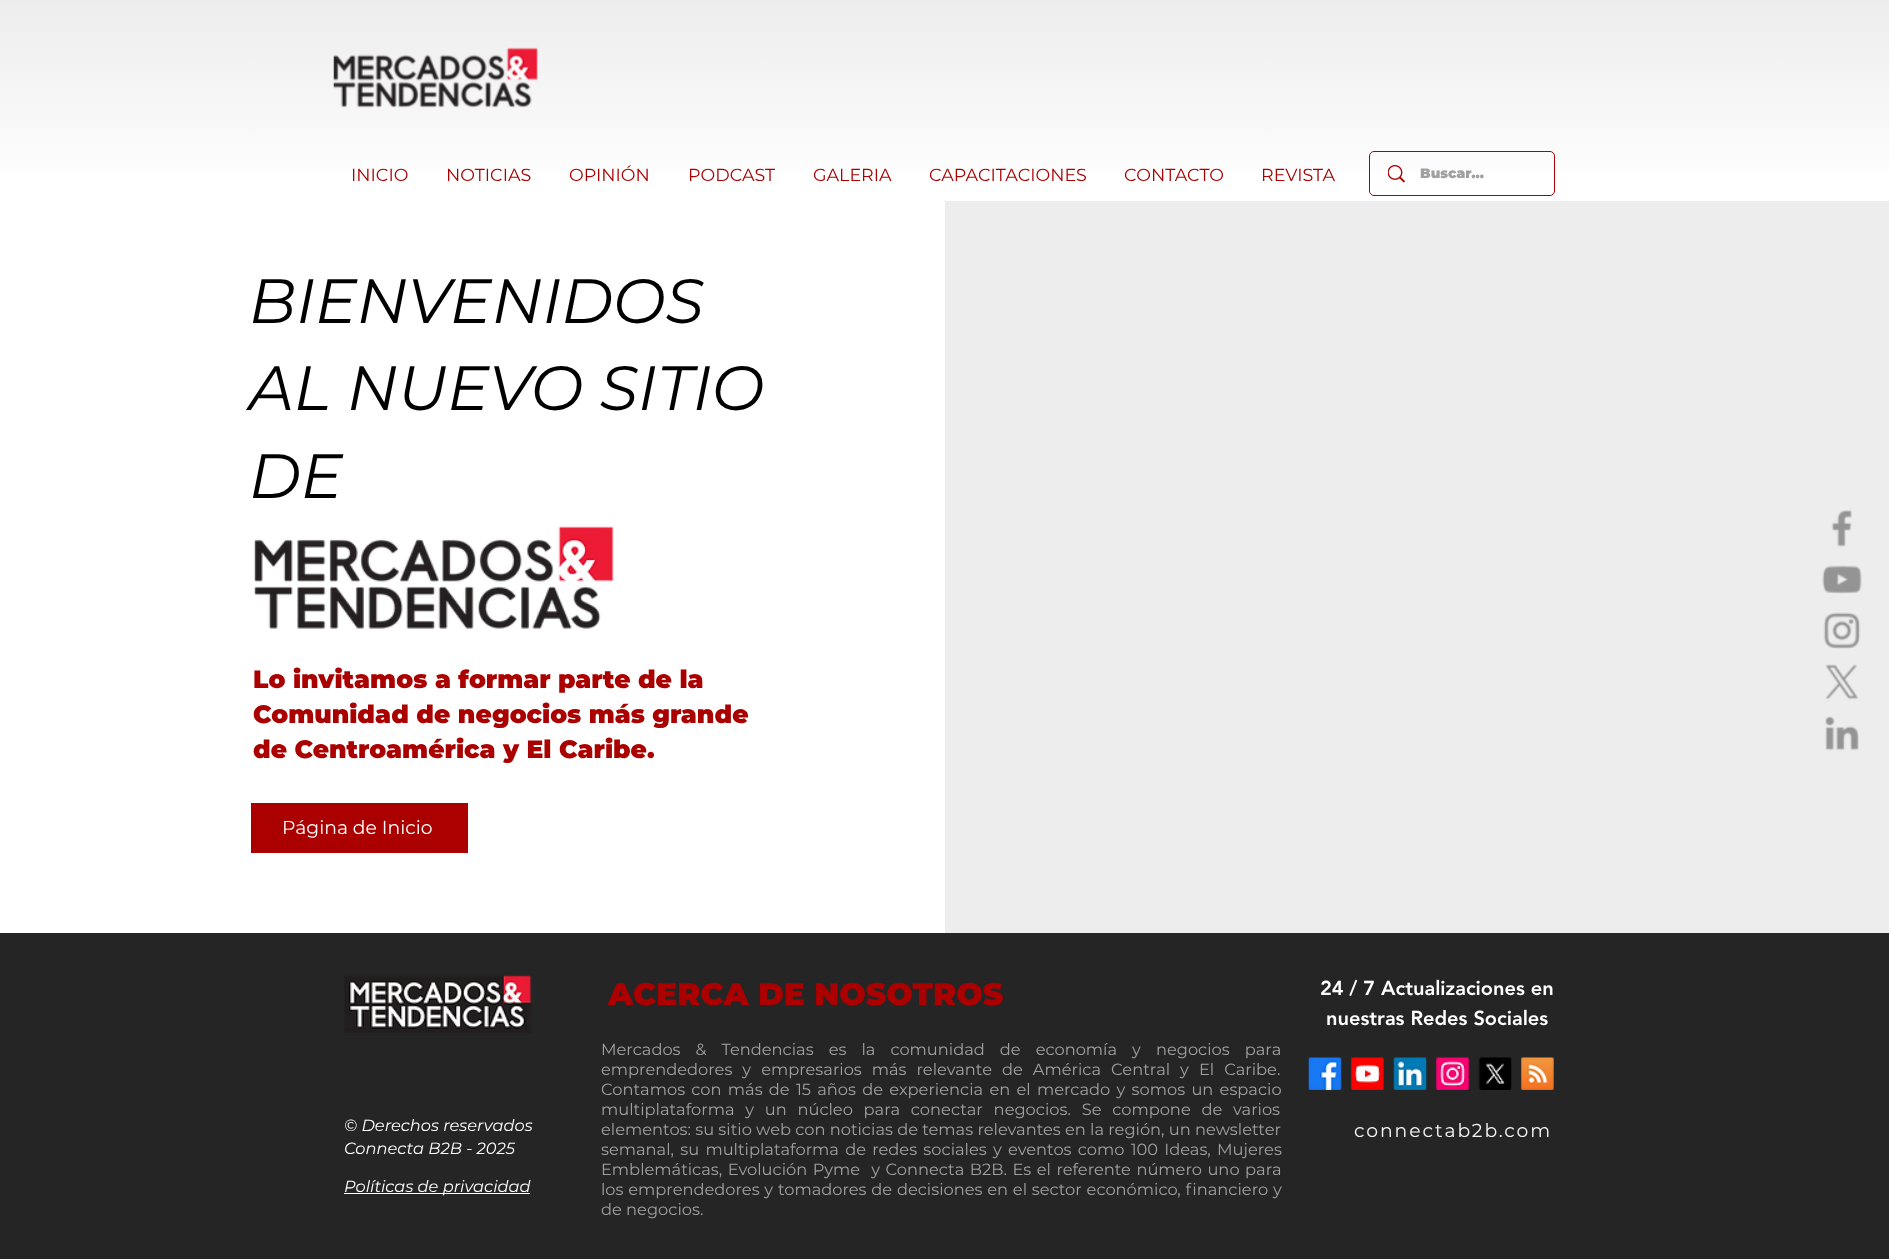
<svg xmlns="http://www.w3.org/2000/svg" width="1889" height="1259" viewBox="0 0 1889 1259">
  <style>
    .t1 { font: 17.5px Montserrat; fill: #a00; }
    .t2 { font: 100 13.75px Montserrat; fill: #a0a09f; }
    .t3 { font: italic 62.5px Montserrat; fill: #000; }
    .t4 { font: 100 25px Montserrat; fill: #a00; }
    .t5 { font: 18.75px Montserrat; fill: #fff; }
    .t6 { font: italic 16.25px Montserrat; fill: #fff; }
    .t7 { font: 100 31.25px Montserrat; fill: #a00; }
    .t8 { font: 16.25px Montserrat; fill: #a0a09f; }
    .t9 { font: 900 20px 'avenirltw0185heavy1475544'; fill: #fff; }
    .t10 { font: 18.75px Montserrat; letter-spacing: 1.9px; fill: #f6f6f6; }
  </style>
  <defs>
    <linearGradient id="g1" gradientUnits="userSpaceOnUse" x1="945" y1="0" x2="945" y2="201"><stop offset="0" stop-color="#ededed"/><stop offset="0.99" stop-color="#fff"/></linearGradient>
  </defs>
  <rect width="100%" height="100%" fill="#fff"/>
  <rect x="0" y="0" width="1889" height="171" fill="url(#g1)"/>
  <image x="333" y="47" width="205" height="61" href="images/1.png"/>
  <text x="351" y="181" class="t1">INICIO</text>
  <text x="446" y="181" class="t1">NOTICIAS</text>
  <text x="569" y="181" class="t1">OPINIÓN</text>
  <text x="688" y="181" class="t1">PODCAST</text>
  <text x="813" y="181" class="t1">GALERIA</text>
  <text x="929" y="181" class="t1">CAPACITACIONES</text>
  <text x="1124" y="181" class="t1">CONTACTO</text>
  <text x="1261" y="181" class="t1">REVISTA</text>
  <rect x="1369.5" y="151.5" width="185" height="44" rx="4.5" fill="none" stroke="#a00"/>
  <image x="1388" y="165" width="17" height="18" href="images/2.png"/>
  <text x="1420" y="178" class="t2">Buscar...</text>
  <text x="249" y="323" class="t3">BIENVENIDOS</text>
  <text x="249" y="410" class="t3">AL NUEVO SITIO</text>
  <text x="249" y="498" class="t3">DE</text>
  <image x="253" y="526" width="361" height="103" href="images/3.png"/>
  <text x="253" y="688" class="t4">Lo invitamos a formar parte de la</text>
  <text x="253" y="723" class="t4">Comunidad de negocios más grande</text>
  <text x="253" y="758" class="t4">de Centroamérica y El Caribe.</text>
  <rect x="251" y="803" width="217" height="50" fill="#a00"/>
  <text x="282" y="834" class="t5">Página de Inicio</text>
  <rect x="945" y="201" width="944" height="732" fill="#ededed"/>
  <image x="1831" y="510" width="21" height="37" href="images/4.png"/>
  <image x="1822" y="565" width="40" height="29" href="images/5.png"/>
  <image x="1823" y="612" width="38" height="37" href="images/6.png"/>
  <image x="1825" y="664" width="33" height="36" href="images/7.png"/>
  <image x="1825" y="716" width="34" height="35" href="images/8.png"/>
  <rect x="0" y="933" width="1889" height="326" fill="#252525"/>
  <image x="344" y="975" width="188" height="58" href="images/9.png"/>
  <text x="344" y="1131" class="t6">© Derechos reservados</text>
  <text x="344" y="1154" class="t6">Connecta B2B - 2025</text>
  <rect x="344" y="1193" width="186" height="1" fill="#fff"/>
  <text x="344" y="1192" class="t6">Políticas de privacidad</text>
  <text x="608" y="1005" class="t7">ACERCA DE NOSOTROS</text>
  <text x="601" y="1055" word-spacing="10.75" class="t8">Mercados &amp; Tendencias es la comunidad de economía y negocios para</text>
  <text x="601" y="1075" word-spacing="5.75" class="t8">emprendedores y empresarios más relevante de América Central y El Caribe.</text>
  <text x="601" y="1095" word-spacing="2" class="t8">Contamos con más de 15 años de experiencia en el mercado y somos un espacio</text>
  <text x="601" y="1115" word-spacing="6.5" class="t8">multiplataforma y un núcleo para conectar negocios. Se compone de varios</text>
  <text x="601" y="1135" class="t8">elementos: su sitio web con noticias de temas relevantes en la región, un newsletter</text>
  <text x="601" y="1155" word-spacing="2" class="t8">semanal, su multiplataforma de redes sociales y eventos como 100 Ideas, Mujeres</text>
  <text x="601" y="1175" word-spacing="1.25" class="t8" xml:space="preserve">Emblemáticas, Evolución Pyme  y Connecta B2B. Es el referente número uno para</text>
  <text x="601" y="1195" word-spacing="0.5" class="t8">los emprendedores y tomadores de decisiones en el sector económico, financiero y</text>
  <text x="601" y="1215" class="t8">de negocios.</text>
  <text x="1320" y="995" class="t9">24 / 7 Actualizaciones en</text>
  <text x="1326" y="1025" class="t9">nuestras Redes Sociales</text>
  <image x="1308" y="1057" width="34" height="33" href="images/10.png"/>
  <image x="1351" y="1057" width="33" height="33" href="images/11.png"/>
  <image x="1393" y="1057" width="34" height="33" href="images/12.png"/>
  <image x="1436" y="1057" width="33" height="33" href="images/13.png"/>
  <image x="1478" y="1057" width="34" height="33" href="images/14.png"/>
  <image x="1521" y="1057" width="33" height="33" href="images/15.png"/>
  <text x="1354" y="1137" class="t10">connectab2b.com</text>
</svg>
